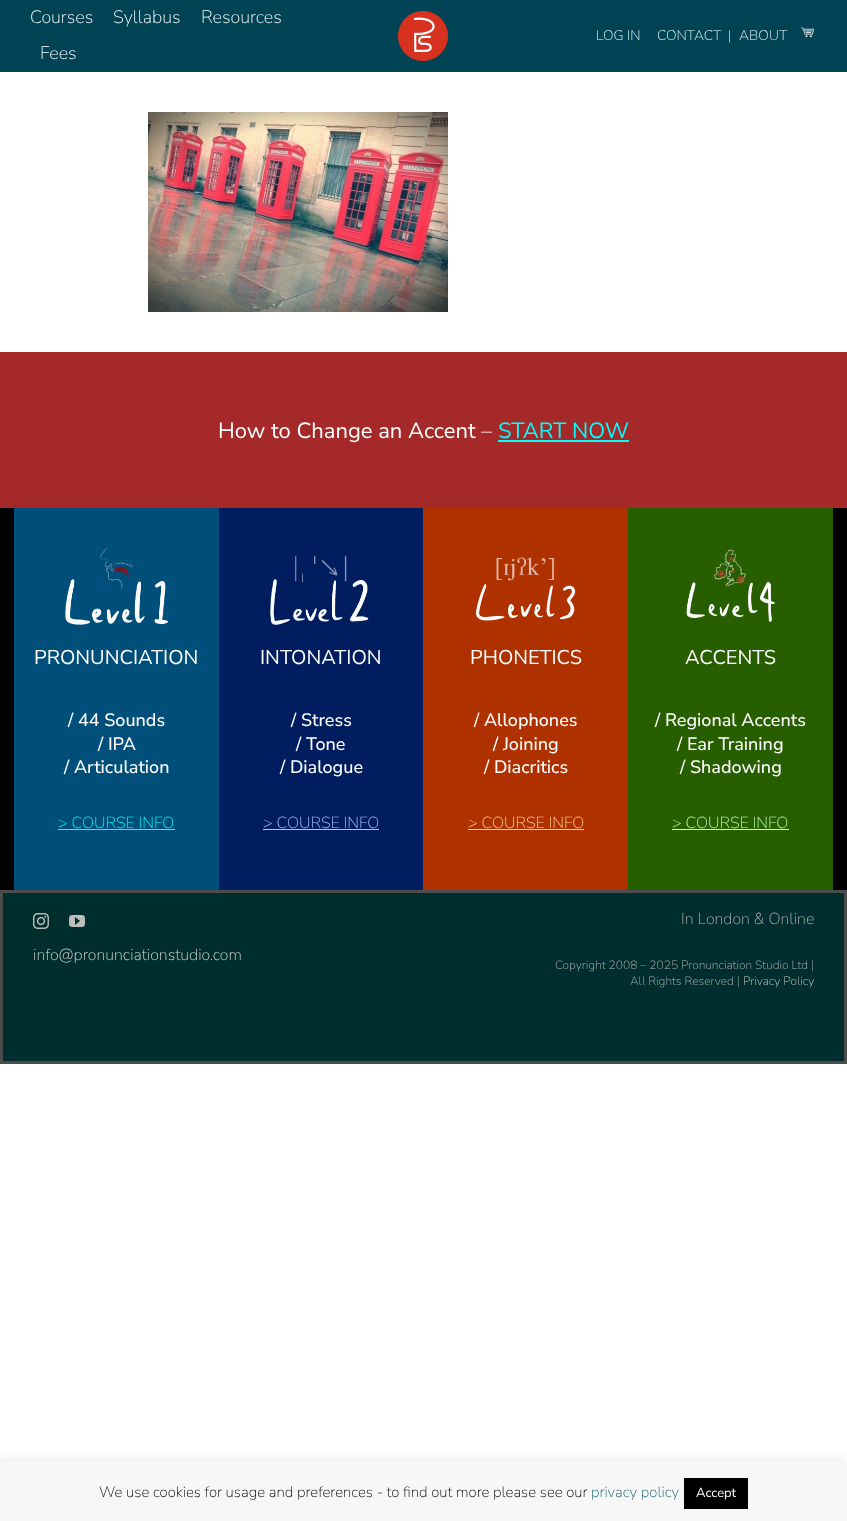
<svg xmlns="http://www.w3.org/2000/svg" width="847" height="1521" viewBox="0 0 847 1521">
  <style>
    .t1 { font: 200 18px Nunito Sans; fill: #fff; }
    .t2 { font: 200 14px Nunito Sans; fill: #edffff; }
    .t3 { font: 200 14px Nunito Sans; fill: #fff; }
    .t4 { font: 22px Nunito Sans; fill: #fff; }
    .t5 { font: 200 22px Nunito Sans; fill: #fff; }
    .t6 { font: 22px Nunito Sans; fill: #0ff; }
    .t7 { font: 20px Nunito Sans; fill: #fff; }
    .t8 { font: 500 18px Nunito Sans; fill: #fff; }
    .t9 { font: 200 16px Nunito Sans; fill: #0ff; }
    .t10 { font: 200 16px Nunito Sans; fill: #b0c4ff; }
    .t11 { font: 200 16px Nunito Sans; fill: #ffd79c; }
    .t12 { font: 200 16px Nunito Sans; fill: #bdffbd; }
    .t13 { font: 200 16px Nunito Sans; fill: #d9d9d9; }
    .t14 { font: 200 16px Nunito Sans; fill: #b7b7b7; }
    .t15 { font: 200 12px Nunito Sans; fill: #b7b7b7; }
    .t16 { font: 200 12px Nunito Sans; fill: #ccc; }
    .t17 { font: 200 15px Nunito Sans; fill: #000; }
    .t18 { font: 200 15px Nunito Sans; fill: #195f6d; }
    .t19 { font: 13px Nunito Sans; fill: #fff; }
  </style>
  <rect width="100%" height="100%" fill="#fff"/>
  <rect x="0" y="0" width="847" height="72" fill="#004354"/>
  <text x="30" y="23" class="t1">Courses</text>
  <text x="113" y="23" class="t1">Syllabus</text>
  <text x="201" y="23" class="t1">Resources</text>
  <text x="40" y="59" class="t1">Fees</text>
  <image x="398" y="11" width="50" height="50" href="images/1.png"/>
  <text x="596" y="40" class="t2">LOG IN</text>
  <text x="657" y="40" class="t2">CONTACT</text>
  <text x="728" y="40" class="t2">|</text>
  <text x="739" y="40" class="t3">ABOUT</text>
  <image x="800" y="26" width="14" height="12" href="images/2.png"/>
  <image x="148" y="112" width="300" height="200" href="images/3.png"/>
  <rect x="0" y="352" width="847" height="156" fill="#a52929"/>
  <text x="218" y="438" class="t4">How to Change an Accent</text>
  <text x="481" y="438" class="t5">–</text>
  <text x="498" y="438" class="t6">START NOW</text>
  <rect x="498" y="440" width="131" height="2" fill="#0ff"/>
  <rect x="0" y="508" width="847" height="382" fill="#000"/>
  <rect x="14" y="508" width="205" height="382" fill="#004f7a"/>
  <image x="100" y="547" width="33" height="43" href="images/4.png"/>
  <image x="65" y="579" width="103" height="46" href="images/5.png"/>
  <text x="34" y="664" class="t7">PRONUNCIATION</text>
  <text x="68" y="726" class="t8">/ 44 Sounds</text>
  <text x="98" y="750" class="t8">/ IPA</text>
  <text x="64" y="773" class="t8">/ Articulation</text>
  <text x="58" y="828" class="t9">&gt; COURSE INFO</text>
  <rect x="58" y="829" width="117" height="1" fill="#0ff"/>
  <rect x="219" y="508" width="204" height="382" fill="#001d60"/>
  <image x="295" y="555" width="52" height="27" href="images/6.png"/>
  <image x="270" y="579" width="99" height="46" href="images/7.png"/>
  <text x="260" y="664" class="t7">INTONATION</text>
  <text x="291" y="726" class="t8">/ Stress</text>
  <text x="296" y="750" class="t8">/ Tone</text>
  <text x="280" y="773" class="t8">/ Dialogue</text>
  <text x="263" y="828" class="t10">&gt; COURSE INFO</text>
  <rect x="263" y="829" width="116" height="1" fill="#b0c4ff"/>
  <rect x="423" y="508" width="205" height="382" fill="#af3100"/>
  <image x="496" y="557" width="58" height="24" href="images/8.png"/>
  <image x="476" y="584" width="100" height="37" href="images/9.png"/>
  <text x="470" y="664" class="t7">PHONETICS</text>
  <text x="474" y="726" class="t8">/ Allophones</text>
  <text x="493" y="750" class="t8">/ Joining</text>
  <text x="484" y="773" class="t8">/ Diacritics</text>
  <text x="468" y="828" class="t11">&gt; COURSE INFO</text>
  <rect x="468" y="829" width="116" height="1" fill="#ffd79c"/>
  <rect x="628" y="508" width="205" height="382" fill="#275e00"/>
  <image x="713" y="549" width="33" height="37" href="images/10.png"/>
  <image x="686" y="581" width="89" height="41" href="images/11.png"/>
  <text x="685" y="664" class="t7">ACCENTS</text>
  <text x="655" y="726" class="t8">/ Regional Accents</text>
  <text x="677" y="750" class="t8">/ Ear Training</text>
  <text x="680" y="773" class="t8">/ Shadowing</text>
  <text x="672" y="828" class="t12">&gt; COURSE INFO</text>
  <rect x="672" y="829" width="117" height="1" fill="#bdffbd"/>
  <rect x="1.5" y="891.5" width="844" height="171" fill="#002d2d" stroke="#4c4c4c" stroke-width="3"/>
  <image x="33" y="913" width="16" height="16" href="images/12.png"/>
  <image x="69" y="915" width="16" height="12" href="images/13.png"/>
  <text x="33" y="960" class="t13">info@pronunciationstudio.com</text>
  <text x="681" y="924" class="t14">In London &amp; Online</text>
  <text x="555" y="969" class="t15">Copyright 2008 – 2025 Pronunciation Studio Ltd |</text>
  <text x="630" y="985" class="t15">All Rights Reserved |</text>
  <text x="743" y="985" class="t16">Privacy Policy</text>
  <rect x="0" y="1460" width="847" height="60" fill="#acabab4d" filter="blur(5px)"/>
  <rect x="0" y="1461" width="847" height="60" fill="#f7f7f7"/>
  <text x="99" y="1497" class="t17">We use cookies for usage and preferences - to find out more please see our</text>
  <text x="591" y="1497" class="t18">privacy policy</text>
  <rect x="684" y="1478" width="64" height="31" fill="#000"/>
  <text x="696" y="1497" class="t19">Accept</text>
</svg>
